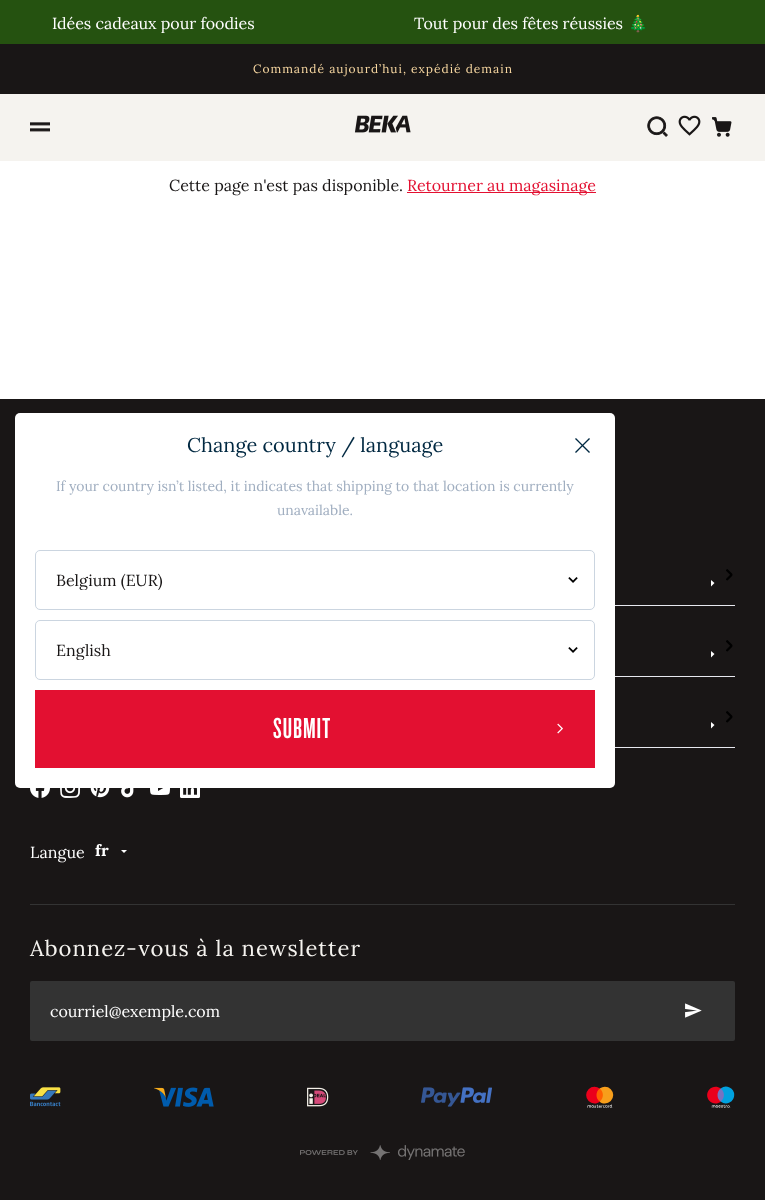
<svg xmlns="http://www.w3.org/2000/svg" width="765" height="1200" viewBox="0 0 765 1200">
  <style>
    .t1 { font: 16px Lora; fill: #fff; }
    .t2 { font: 16px Noto Color Emoji; fill: #fff; }
    .t3 { font: 12px Lora; letter-spacing: 1px; fill: #f7d7a1; }
    .t4 { font: 16px Lora; fill: #191616; }
    .t5 { font: 16px Lora; fill: #e31031; }
    .t6 { font: 20px Lora; fill: #002841; }
    .t7 { font: 14px Lora; fill: #a0aec0; }
    .t8 { font: 500 30px 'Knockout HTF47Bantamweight'; letter-spacing: 1px; fill: #fff; }
    .t9 { font: bold 16px Lora; fill: #fff; }
    .t10 { font: 22px Lora; letter-spacing: 1px; fill: #f5f3ef; }
  </style>
  <defs>
    <clipPath id="clip1"><rect x="56" y="570" width="513" height="20"/></clipPath>
    <clipPath id="clip2"><rect x="56" y="640" width="513" height="20"/></clipPath>
    <clipPath id="clip3"><rect x="50" y="1001" width="665" height="20"/></clipPath>
  </defs>
  <rect width="100%" height="100%" fill="#fff"/>
  <rect x="0" y="0" width="765" height="44" fill="#255210"/>
  <text x="52" y="29" class="t1">Idées cadeaux pour foodies</text>
  <text x="414" y="29" class="t1">Tout pour des fêtes réussies</text>
  <text x="628" y="29" class="t2">🎄</text>
  <rect x="0" y="44" width="765" height="50" fill="#191616"/>
  <text x="253" y="73" class="t3">Commandé aujourd’hui, expédié demain</text>
  <rect x="0" y="94" width="765" height="67" fill="#f5f3ef"/>
  <image x="30" y="122" width="20" height="10" href="images/1.png"/>
  <image x="354" y="115" width="57" height="18" href="images/2.png"/>
  <image x="647" y="116" width="21" height="21" href="images/3.png"/>
  <image x="678" y="115" width="23" height="21" href="images/4.png"/>
  <image x="712" y="117" width="20" height="20" href="images/5.png"/>
  <text x="169" y="191" class="t4">Cette page n'est pas disponible.</text>
  <rect x="407" y="192" width="189" height="1" fill="#e31031"/>
  <text x="407" y="191" class="t5">Retourner au magasinage</text>
  <rect x="0" y="399" width="765" height="801" fill="#191616"/>
  <rect x="15" y="413" width="600" height="375" rx="5" fill="#fff"/>
  <text x="187" y="452" class="t6">Change country / language</text>
  <text x="56" y="491" class="t7">If your country isn’t listed, it indicates that shipping to that location is currently</text>
  <text x="277" y="515" class="t7">unavailable.</text>
  <image x="568" y="577" width="10" height="6" href="images/6.png"/>
  <rect x="35.5" y="550.5" width="559" height="59" rx="4.5" fill="none" stroke="#cbd5e0"/>
  <g clip-path="url(#clip1)">
    <text x="56" y="586" class="t4">Belgium (EUR)</text>
  </g>
  <image x="568" y="647" width="10" height="6" href="images/6.png"/>
  <rect x="35.5" y="620.5" width="559" height="59" rx="4.5" fill="none" stroke="#cbd5e0"/>
  <g clip-path="url(#clip2)">
    <text x="56" y="656" class="t4">English</text>
  </g>
  <rect x="35" y="690" width="560" height="78" fill="#e31031"/>
  <image x="557" y="723" width="6" height="11" href="images/7.png"/>
  <text x="273" y="738" class="t8">SUBMIT</text>
  <image x="575" y="438" width="15" height="15" href="images/8.png"/>
  <rect x="615" y="605" width="120" height="1" fill="#e7e8ef"/>
  <image x="726" y="569" width="7" height="12" href="images/9.png"/>
  <path d="M711 586.5L714.5 583L711 580Z" fill="#fff"/>
  <rect x="615" y="676" width="120" height="1" fill="#e7e8ef"/>
  <image x="726" y="640" width="7" height="12" href="images/9.png"/>
  <path d="M711 657.5L714.5 654L711 651Z" fill="#fff"/>
  <rect x="615" y="747" width="120" height="1" fill="#e7e8ef"/>
  <image x="726" y="711" width="7" height="12" href="images/9.png"/>
  <path d="M711 728.5L714.5 725L711 722Z" fill="#fff"/>
  <image x="30" y="788" width="20" height="10" href="images/10.png"/>
  <image x="60" y="788" width="20" height="10" href="images/11.png"/>
  <image x="90" y="788" width="20" height="10" href="images/12.png"/>
  <image x="121" y="788" width="13" height="10" href="images/13.png"/>
  <image x="150" y="788" width="20" height="7" href="images/14.png"/>
  <image x="180" y="788" width="20" height="10" href="images/15.png"/>
  <text x="30" y="858" class="t1">Langue</text>
  <text x="95" y="856" class="t9">fr</text>
  <path d="M127 850L124 853L121 850Z" fill="#fff"/>
  <rect x="30" y="904" width="705" height="1" fill="#333"/>
  <text x="30" y="956" class="t10">Abonnez-vous à la newsletter</text>
  <rect x="30" y="981" width="705" height="60" rx="2" fill="#333"/>
  <g clip-path="url(#clip3)">
    <text x="50" y="1017" class="t1">courriel@exemple.com</text>
  </g>
  <image x="685" y="1003" width="17" height="15" href="images/16.png"/>
  <image x="30" y="1087" width="31" height="20" href="images/17.png"/>
  <image x="154" y="1087" width="60" height="20" href="images/18.png"/>
  <image x="307" y="1087" width="22" height="20" href="images/19.png"/>
  <image x="421" y="1087" width="71" height="20" href="images/20.png"/>
  <image x="586" y="1086" width="28" height="22" href="images/21.png"/>
  <image x="707" y="1086" width="28" height="22" href="images/22.png"/>
  <image x="300" y="1145" width="165" height="15" href="images/23.png"/>
</svg>
